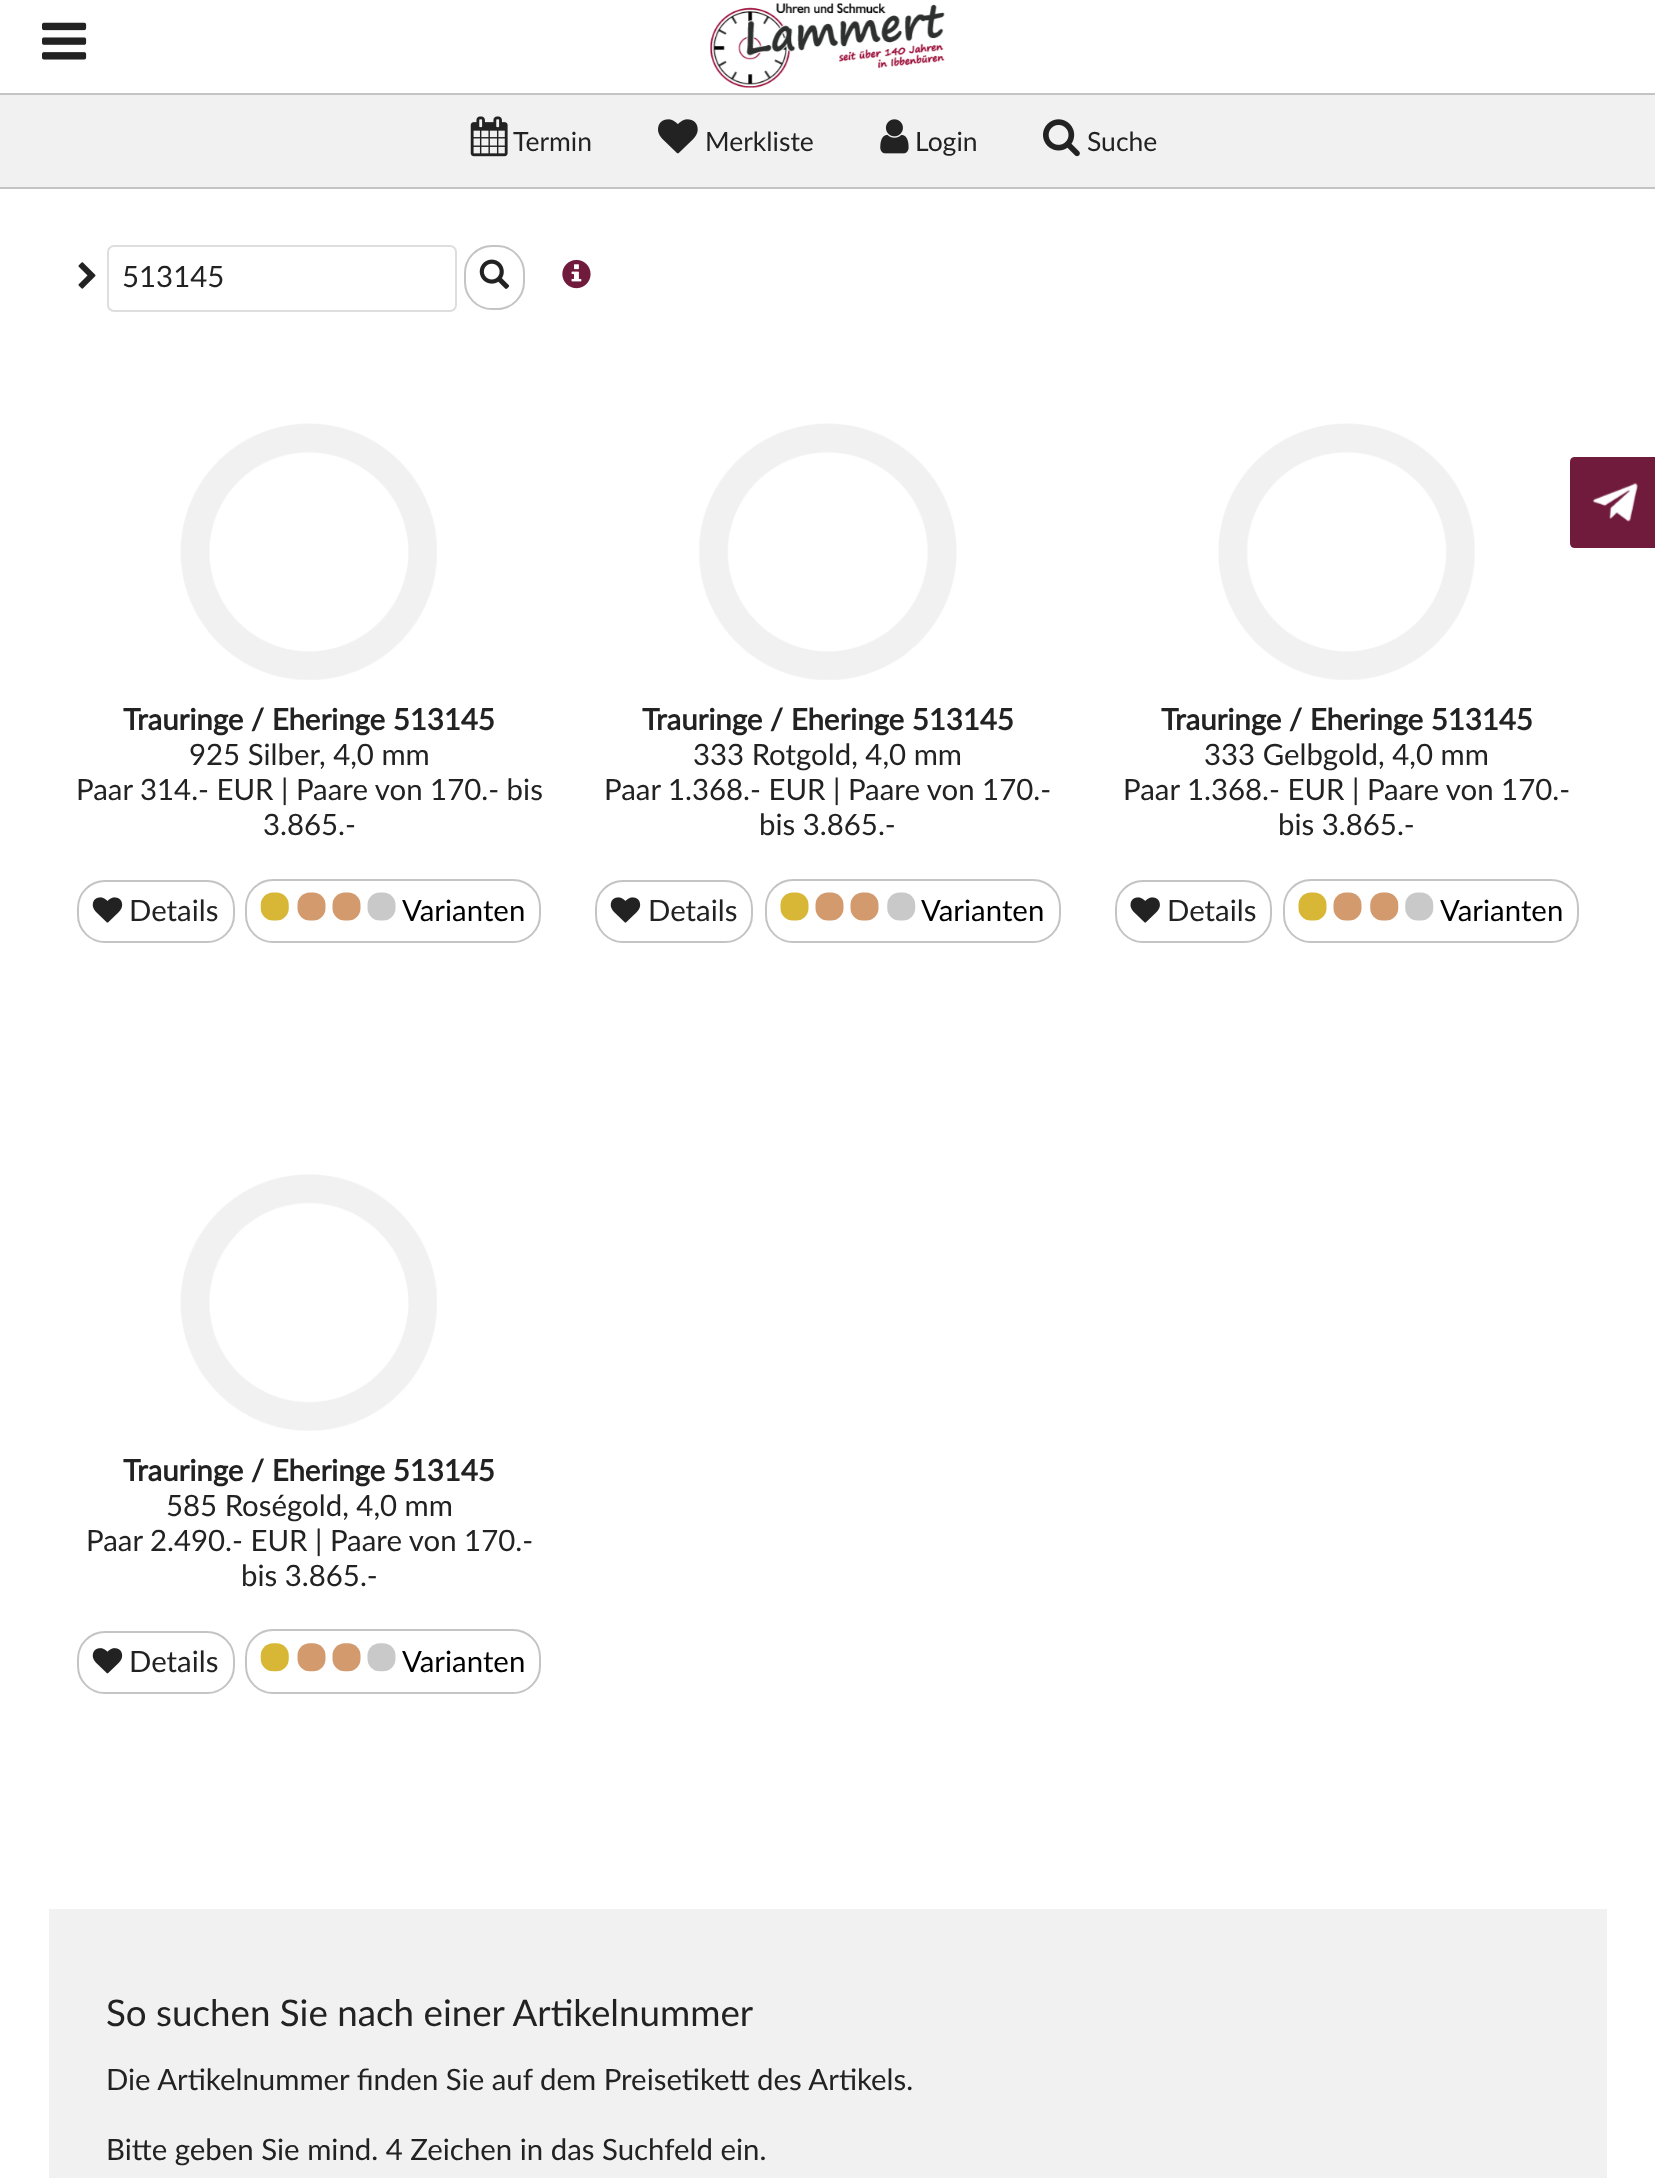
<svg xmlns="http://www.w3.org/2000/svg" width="1655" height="2178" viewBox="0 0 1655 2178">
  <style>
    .t1 { font: 26.5px Lato; fill: #222; }
    .t2 { font: 29.4px Lato; fill: #222; }
    .t3 { font: bold 29.4px Lato; fill: #222; }
    .t4 { font: 29.4px Lato; fill: #000; }
    .t5 { font: 36.75px Lato; fill: #222; }
  </style>
  <rect width="100%" height="100%" fill="#fff"/>
  <rect x="0" y="93" width="1655" height="2" fill="#c4c4c4"/>
  <image x="42" y="22" width="45" height="38" href="images/1.png"/>
  <image x="710" y="3" width="235" height="85" href="images/2.png"/>
  <rect x="0" y="95" width="1655" height="92" fill="#f1f1f1"/>
  <rect x="0" y="187" width="1655" height="2" fill="#c4c4c4"/>
  <image x="470" y="116" width="38" height="41" href="images/3.png"/>
  <text x="513" y="151" class="t1">Termin</text>
  <image x="658" y="119" width="40" height="35" href="images/4.png"/>
  <text x="705" y="151" class="t1">Merkliste</text>
  <image x="880" y="119" width="29" height="35" href="images/5.png"/>
  <text x="915" y="151" class="t1">Login</text>
  <image x="1043" y="119" width="37" height="38" href="images/6.png"/>
  <text x="1087" y="151" class="t1">Suche</text>
  <image x="78" y="262" width="18" height="27" href="images/7.png"/>
  <rect x="108" y="246" width="348" height="65" rx="6" fill="none" stroke="#dedede" stroke-width="2"/>
  <text x="122" y="287" class="t2">513145</text>
  <rect x="465" y="246" width="59" height="63" rx="27" fill="none" stroke="#c4c4c4" stroke-width="2"/>
  <image x="479" y="259" width="31" height="30" href="images/8.png"/>
  <image x="562" y="259" width="29" height="30" href="images/9.png"/>
  <image x="180" y="423" width="257" height="257" href="images/10.png"/>
  <text x="123" y="730" class="t3">Trauringe / Eheringe 513145</text>
  <text x="189" y="765" class="t2">925 Silber, 4,0 mm</text>
  <text x="76" y="800" class="t2">Paar 314.- EUR | Paare von 170.- bis</text>
  <text x="263" y="835" class="t2">3.865.-</text>
  <rect x="78" y="881" width="156" height="61" rx="27" fill="none" stroke="#c4c4c4" stroke-width="2"/>
  <image x="92" y="897" width="31" height="26" href="images/11.png"/>
  <text x="129" y="921" class="t2">Details</text>
  <rect x="246" y="880" width="294" height="62" rx="27" fill="none" stroke="#c4c4c4" stroke-width="2"/>
  <image x="260" y="892" width="29" height="29" href="images/12.png"/>
  <image x="297" y="892" width="29" height="29" href="images/13.png"/>
  <image x="332" y="892" width="29" height="29" href="images/14.png"/>
  <image x="367" y="892" width="29" height="29" href="images/15.png"/>
  <text x="402" y="921" class="t4">Varianten</text>
  <image x="699" y="423" width="258" height="257" href="images/16.png"/>
  <text x="642" y="730" class="t3">Trauringe / Eheringe 513145</text>
  <text x="693" y="765" class="t2">333 Rotgold, 4,0 mm</text>
  <text x="604" y="800" class="t2">Paar 1.368.- EUR | Paare von 170.-</text>
  <text x="759" y="835" class="t2">bis 3.865.-</text>
  <rect x="596" y="881" width="156" height="61" rx="27" fill="none" stroke="#c4c4c4" stroke-width="2"/>
  <image x="610" y="897" width="31" height="26" href="images/11.png"/>
  <text x="648" y="921" class="t2">Details</text>
  <rect x="766" y="880" width="294" height="62" rx="27" fill="none" stroke="#c4c4c4" stroke-width="2"/>
  <image x="780" y="892" width="29" height="29" href="images/17.png"/>
  <image x="815" y="892" width="29" height="29" href="images/18.png"/>
  <image x="850" y="892" width="29" height="29" href="images/14.png"/>
  <image x="887" y="892" width="29" height="29" href="images/19.png"/>
  <text x="921" y="921" class="t4">Varianten</text>
  <image x="1218" y="423" width="257" height="257" href="images/20.png"/>
  <text x="1161" y="730" class="t3">Trauringe / Eheringe 513145</text>
  <text x="1204" y="765" class="t2">333 Gelbgold, 4,0 mm</text>
  <text x="1123" y="800" class="t2">Paar 1.368.- EUR | Paare von 170.-</text>
  <text x="1278" y="835" class="t2">bis 3.865.-</text>
  <rect x="1116" y="881" width="155" height="61" rx="27" fill="none" stroke="#c4c4c4" stroke-width="2"/>
  <image x="1130" y="897" width="30" height="26" href="images/21.png"/>
  <text x="1167" y="921" class="t2">Details</text>
  <rect x="1284" y="880" width="294" height="62" rx="27" fill="none" stroke="#c4c4c4" stroke-width="2"/>
  <image x="1298" y="892" width="29" height="29" href="images/22.png"/>
  <image x="1333" y="892" width="29" height="29" href="images/14.png"/>
  <image x="1370" y="892" width="29" height="29" href="images/23.png"/>
  <image x="1405" y="892" width="29" height="29" href="images/24.png"/>
  <text x="1440" y="921" class="t4">Varianten</text>
  <image x="180" y="1174" width="257" height="257" href="images/25.png"/>
  <text x="123" y="1481" class="t3">Trauringe / Eheringe 513145</text>
  <text x="166" y="1516" class="t2">585 Roségold, 4,0 mm</text>
  <text x="86" y="1551" class="t2">Paar 2.490.- EUR | Paare von 170.-</text>
  <text x="241" y="1586" class="t2">bis 3.865.-</text>
  <rect x="78" y="1632" width="156" height="61" rx="27" fill="none" stroke="#c4c4c4" stroke-width="2"/>
  <image x="92" y="1648" width="31" height="26" href="images/26.png"/>
  <text x="129" y="1672" class="t2">Details</text>
  <rect x="246" y="1630" width="294" height="63" rx="27" fill="none" stroke="#c4c4c4" stroke-width="2"/>
  <image x="260" y="1643" width="29" height="29" href="images/27.png"/>
  <image x="297" y="1643" width="29" height="29" href="images/28.png"/>
  <image x="332" y="1643" width="29" height="29" href="images/28.png"/>
  <image x="367" y="1643" width="29" height="29" href="images/29.png"/>
  <text x="402" y="1672" class="t4">Varianten</text>
  <rect x="49" y="1909" width="1558" height="269" fill="#f1f1f1"/>
  <text x="106" y="2026" class="t5">So suchen Sie nach einer Artikelnummer</text>
  <text x="106" y="2090" class="t2">Die Artikelnummer finden Sie auf dem Preisetikett des Artikels.</text>
  <text x="106" y="2160" class="t2">Bitte geben Sie mind. 4 Zeichen in das Suchfeld ein.</text>
  <path d="M1575 456H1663V549H1575C1571.5 549 1569 546.5 1569 543V462C1569 458.5 1571.5 456 1575 456Z" fill="#701a3c" stroke="#fff" stroke-width="2"/>
  <image x="1592" y="482" width="46" height="40" href="images/30.png"/>
</svg>
